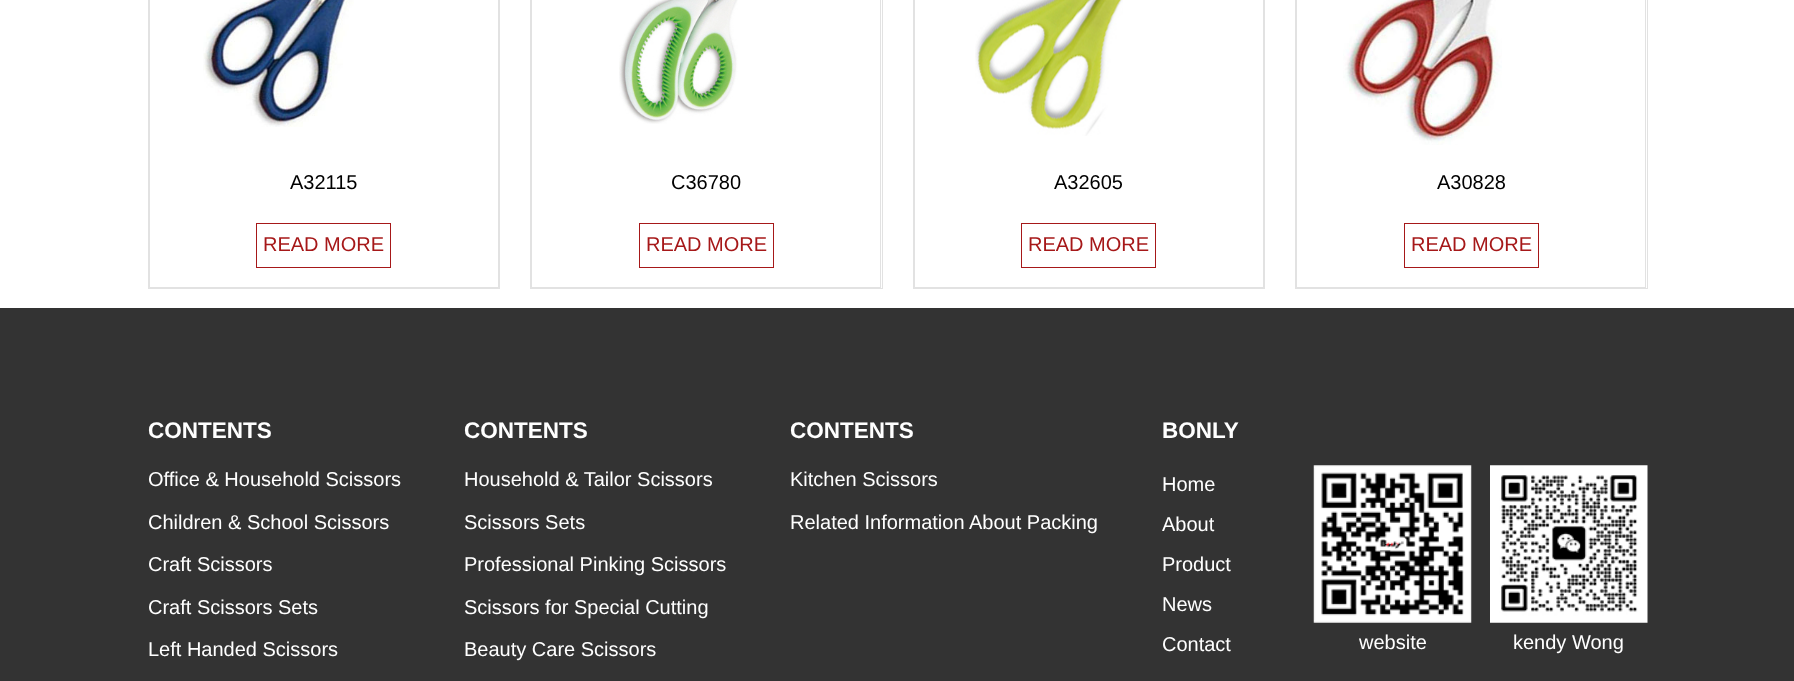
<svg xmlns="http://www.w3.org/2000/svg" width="1794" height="681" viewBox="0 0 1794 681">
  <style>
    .t1 { font: 20px Liberation Sans; fill: #000; }
    .t2 { font: 20px Liberation Sans; fill: #a61819; }
    .t3 { font: bold 22.5px Liberation Sans; fill: #fff; }
    .t4 { font: 20px Liberation Sans; fill: #fff; }
  </style>
  <rect width="100%" height="100%" fill="#fff"/>
  <rect x="148.5" y="-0.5" width="351" height="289" fill="none" stroke="#e2e2e2"/>
  <rect x="149.5" y="-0.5" width="349" height="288" fill="none" stroke="#e2e2e2"/>
  <image x="203" y="0" width="151" height="127" href="images/1.png"/>
  <text x="290" y="189" class="t1">A32115</text>
  <rect x="256.5" y="223.5" width="134" height="44" fill="none" stroke="#a61819"/>
  <text x="263" y="251" class="t2">READ MORE</text>
  <rect x="530.5" y="-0.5" width="352" height="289" fill="none" stroke="#e2e2e2"/>
  <rect x="531.5" y="-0.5" width="349" height="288" fill="none" stroke="#e2e2e2"/>
  <image x="619" y="0" width="119" height="124" href="images/2.png"/>
  <text x="671" y="189" class="t1">C36780</text>
  <rect x="639.5" y="223.5" width="134" height="44" fill="none" stroke="#a61819"/>
  <text x="646" y="251" class="t2">READ MORE</text>
  <rect x="913.5" y="-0.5" width="351" height="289" fill="none" stroke="#e2e2e2"/>
  <rect x="914.5" y="-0.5" width="349" height="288" fill="none" stroke="#e2e2e2"/>
  <image x="975" y="0" width="148" height="136" href="images/3.png"/>
  <text x="1054" y="189" class="t1">A32605</text>
  <rect x="1021.5" y="223.5" width="134" height="44" fill="none" stroke="#a61819"/>
  <text x="1028" y="251" class="t2">READ MORE</text>
  <rect x="1295.5" y="-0.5" width="352" height="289" fill="none" stroke="#e2e2e2"/>
  <rect x="1296.5" y="-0.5" width="349" height="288" fill="none" stroke="#e2e2e2"/>
  <image x="1343" y="0" width="159" height="145" href="images/4.png"/>
  <text x="1437" y="189" class="t1">A30828</text>
  <rect x="1404.5" y="223.5" width="134" height="44" fill="none" stroke="#a61819"/>
  <text x="1411" y="251" class="t2">READ MORE</text>
  <rect x="0" y="308" width="1794" height="373" fill="#333"/>
  <text x="148" y="438" class="t3">CONTENTS</text>
  <text x="148" y="486" class="t4">Office &amp; Household Scissors</text>
  <text x="148" y="529" class="t4">Children &amp; School Scissors</text>
  <text x="148" y="571" class="t4">Craft Scissors</text>
  <text x="148" y="614" class="t4">Craft Scissors Sets</text>
  <text x="148" y="656" class="t4">Left Handed Scissors</text>
  <text x="464" y="438" class="t3">CONTENTS</text>
  <text x="464" y="486" class="t4">Household &amp; Tailor Scissors</text>
  <text x="464" y="529" class="t4">Scissors Sets</text>
  <text x="464" y="571" class="t4">Professional Pinking Scissors</text>
  <text x="464" y="614" class="t4">Scissors for Special Cutting</text>
  <text x="464" y="656" class="t4">Beauty Care Scissors</text>
  <text x="790" y="438" class="t3">CONTENTS</text>
  <text x="790" y="486" class="t4">Kitchen Scissors</text>
  <text x="790" y="529" class="t4">Related Information About Packing</text>
  <text x="1162" y="438" class="t3">BONLY</text>
  <text x="1162" y="491" class="t4">Home</text>
  <text x="1162" y="531" class="t4">About</text>
  <text x="1162" y="571" class="t4">Product</text>
  <text x="1162" y="611" class="t4">News</text>
  <text x="1162" y="651" class="t4">Contact</text>
  <image x="1313" y="465" width="159" height="158" href="images/5.png"/>
  <text x="1359" y="649" class="t4">website</text>
  <image x="1490" y="465" width="158" height="158" href="images/6.png"/>
  <text x="1513" y="649" class="t4">kendy Wong</text>
</svg>
